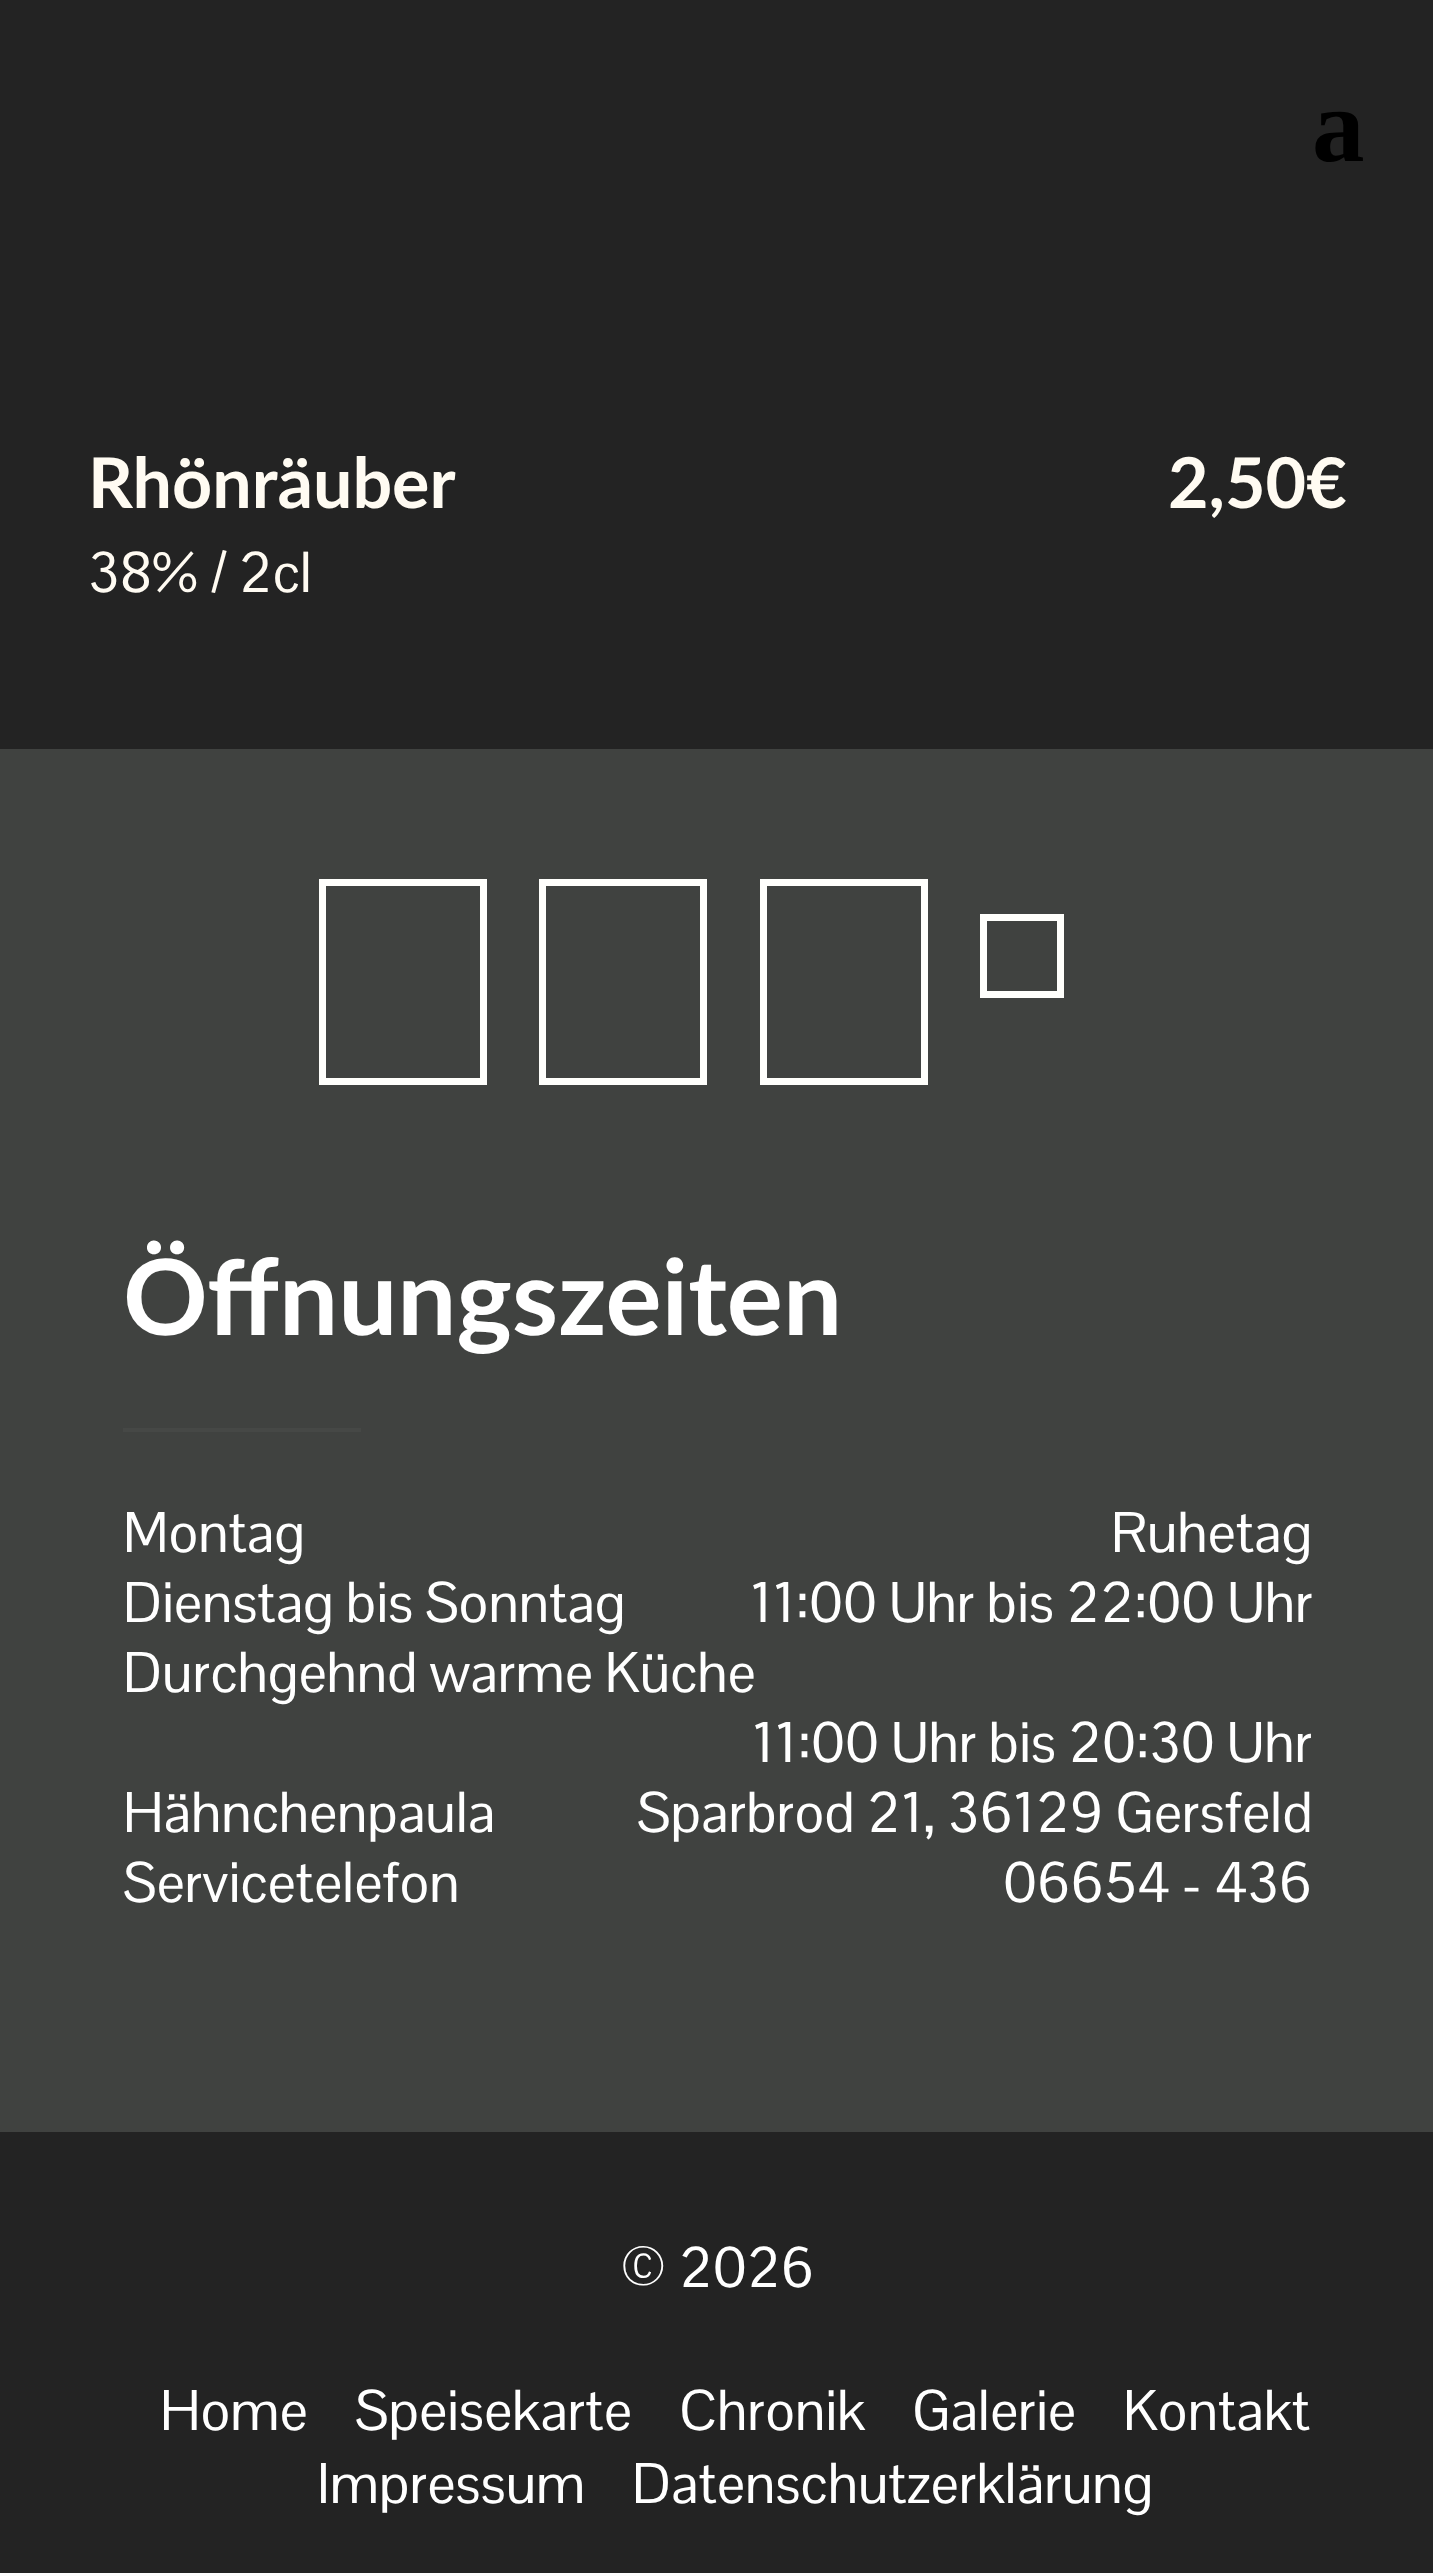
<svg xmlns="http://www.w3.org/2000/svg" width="1433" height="2573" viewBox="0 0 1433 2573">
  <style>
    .t1 { font: bold 105px Liberation Serif; fill: #000; }
    .t2 { font: bold 70px Lato; fill: #fffbf2; }
    .t3 { font: 56px Pontano Sans; fill: #fffbf2; }
    .t4 { font: bold 105px Lato; fill: #fff; }
    .t5 { font: 56px Pontano Sans; fill: #fff; }
  </style>
  <rect width="100%" height="100%" fill="#232323"/>
  <text x="1312" y="161" class="t1">a</text>
  <text x="88" y="508" class="t2">Rhönräuber</text>
  <text x="1168" y="508" class="t2">2,50€</text>
  <text x="88" y="592" class="t3">38% / 2cl</text>
  <rect x="0" y="749" width="1433" height="1383" fill="#404240"/>
  <rect x="322.5" y="882.5" width="161" height="199" fill="none" stroke="#fffffc" stroke-width="7"/>
  <rect x="542.5" y="882.5" width="161" height="199" fill="none" stroke="#fffffc" stroke-width="7"/>
  <rect x="763.5" y="882.5" width="161" height="199" fill="none" stroke="#fffffc" stroke-width="7"/>
  <rect x="983.5" y="917.5" width="77" height="77" fill="none" stroke="#fffffc" stroke-width="7"/>
  <text x="123" y="1335" class="t4">Öffnungszeiten</text>
  <rect x="123" y="1428" width="238" height="4" fill="#464846"/>
  <text x="123" y="1552" class="t5">Montag</text>
  <text x="1111" y="1552" class="t5">Ruhetag</text>
  <text x="123" y="1622" class="t5">Dienstag bis Sonntag</text>
  <text x="750" y="1622" class="t5">11:00 Uhr bis 22:00 Uhr</text>
  <text x="123" y="1692" class="t5">Durchgehnd warme Küche</text>
  <text x="752" y="1762" class="t5">11:00 Uhr bis 20:30 Uhr</text>
  <text x="123" y="1832" class="t5">Hähnchenpaula</text>
  <text x="637" y="1832" class="t5">Sparbrod 21, 36129 Gersfeld</text>
  <text x="123" y="1902" class="t5">Servicetelefon</text>
  <text x="1003" y="1902" class="t5">06654 - 436</text>
  <text x="620" y="2287" class="t5">© 2026</text>
  <text x="160" y="2430" class="t5">Home</text>
  <text x="355" y="2430" class="t5">Speisekarte</text>
  <text x="679" y="2430" class="t5">Chronik</text>
  <text x="912" y="2430" class="t5">Galerie</text>
  <text x="1123" y="2430" class="t5">Kontakt</text>
  <text x="317" y="2503" class="t5">Impressum</text>
  <text x="632" y="2503" class="t5">Datenschutzerklärung</text>
</svg>
